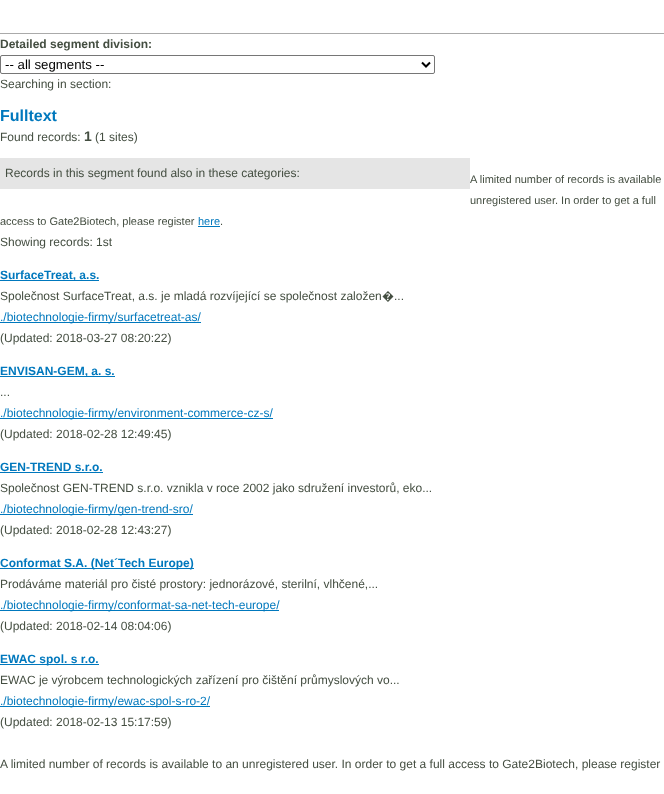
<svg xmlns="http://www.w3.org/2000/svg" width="664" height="794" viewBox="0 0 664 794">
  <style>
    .t1 { font: bold 12px Liberation Sans; fill: #444e41; }
    .t2 { font: 13.25px Liberation Sans; fill: #000; }
    .t3 { font: 12px Liberation Sans; fill: #444e41; }
    .t4 { font: bold 16px Liberation Sans; fill: #0078bd; }
    .t5 { font: bold 14px Liberation Sans; fill: #444e41; }
    .t6 { font: 11px Liberation Sans; fill: #444e41; }
    .t7 { font: 11px Liberation Sans; fill: #0078bd; }
    .t8 { font: bold 12px Liberation Sans; fill: #0078bd; }
    .t9 { font: 12px Noto Sans; fill: #444e41; }
    .t10 { font: 12px Liberation Sans; fill: #0078bd; }
  </style>
  <rect width="100%" height="100%" fill="#fff"/>
  <rect x="0" y="33" width="664" height="1" fill="#aaa"/>
  <text x="0" y="48" class="t1">Detailed segment division:</text>
  <rect x="0.5" y="55.5" width="434" height="18" rx="1.5" fill="none" stroke="#767676"/>
  <path d="M422 62.5L426 66.5L430 62.5" fill="none" stroke="#000" stroke-width="2"/>
  <text x="5" y="69" class="t2">-- all segments --</text>
  <text x="0" y="88" class="t3">Searching in section:</text>
  <text x="0" y="121" class="t4">Fulltext</text>
  <text x="0" y="141" class="t3">Found records:</text>
  <text x="84" y="141" class="t5">1</text>
  <text x="95" y="141" class="t3">(1 sites)</text>
  <rect x="0" y="158" width="470" height="31" fill="#e5e5e5"/>
  <text x="5" y="177" class="t3">Records in this segment found also in these categories:</text>
  <text x="470" y="183" class="t6">A limited number of records is available</text>
  <text x="470" y="204" class="t6">unregistered user. In order to get a full</text>
  <text x="0" y="225" class="t6">access to Gate2Biotech, please register</text>
  <text x="198" y="225" class="t7">here</text>
  <rect x="198" y="226" width="22" height="1" fill="#0078bd"/>
  <text x="220" y="225" class="t6">.</text>
  <text x="0" y="246" class="t3">Showing records: 1st</text>
  <rect x="0" y="280" width="99" height="1" fill="#0078bd"/>
  <text x="0" y="279" class="t8">SurfaceTreat, a.s.</text>
  <text x="0" y="300" class="t3">Společnost SurfaceTreat, a.s. je mladá rozvíjející se společnost založen</text>
  <text x="382" y="300" class="t9">�</text>
  <text x="394" y="300" class="t3">...</text>
  <rect x="0" y="322" width="201" height="1" fill="#0078bd"/>
  <text x="0" y="321" class="t10">./biotechnologie-firmy/surfacetreat-as/</text>
  <text x="0" y="342" class="t3">(Updated: 2018-03-27 08:20:22)</text>
  <rect x="0" y="376" width="115" height="1" fill="#0078bd"/>
  <text x="0" y="375" class="t8">ENVISAN-GEM, a. s.</text>
  <text x="0" y="396" class="t3">...</text>
  <rect x="0" y="418" width="273" height="1" fill="#0078bd"/>
  <text x="0" y="417" class="t10">./biotechnologie-firmy/environment-commerce-cz-s/</text>
  <text x="0" y="438" class="t3">(Updated: 2018-02-28 12:49:45)</text>
  <text x="0" y="471" class="t8">GEN-TREND s.r.o.</text>
  <rect x="0" y="472" width="103" height="1" fill="#0078bd"/>
  <text x="0" y="492" class="t3">Společnost GEN-TREND s.r.o. vznikla v roce 2002 jako sdružení investorů, eko...</text>
  <rect x="0" y="514" width="193" height="1" fill="#0078bd"/>
  <text x="0" y="513" class="t10">./biotechnologie-firmy/gen-trend-sro/</text>
  <text x="0" y="534" class="t3">(Updated: 2018-02-28 12:43:27)</text>
  <rect x="0" y="568" width="194" height="1" fill="#0078bd"/>
  <text x="0" y="567" class="t8">Conformat S.A. (Net´Tech Europe)</text>
  <text x="0" y="588" class="t3">Prodáváme materiál pro čisté prostory: jednorázové, sterilní, vlhčené,...</text>
  <rect x="0" y="610" width="279" height="1" fill="#0078bd"/>
  <text x="0" y="609" class="t10">./biotechnologie-firmy/conformat-sa-net-tech-europe/</text>
  <text x="0" y="630" class="t3">(Updated: 2018-02-14 08:04:06)</text>
  <rect x="0" y="664" width="99" height="1" fill="#0078bd"/>
  <text x="0" y="663" class="t8">EWAC spol. s r.o.</text>
  <text x="0" y="684" class="t3">EWAC je výrobcem technologických zařízení pro čištění průmyslových vo...</text>
  <rect x="0" y="706" width="210" height="1" fill="#0078bd"/>
  <text x="0" y="705" class="t10">./biotechnologie-firmy/ewac-spol-s-ro-2/</text>
  <text x="0" y="726" class="t3">(Updated: 2018-02-13 15:17:59)</text>
  <text x="0" y="768" class="t3">A limited number of records is available to an unregistered user. In order to get a full access to Gate2Biotech, please register</text>
</svg>
